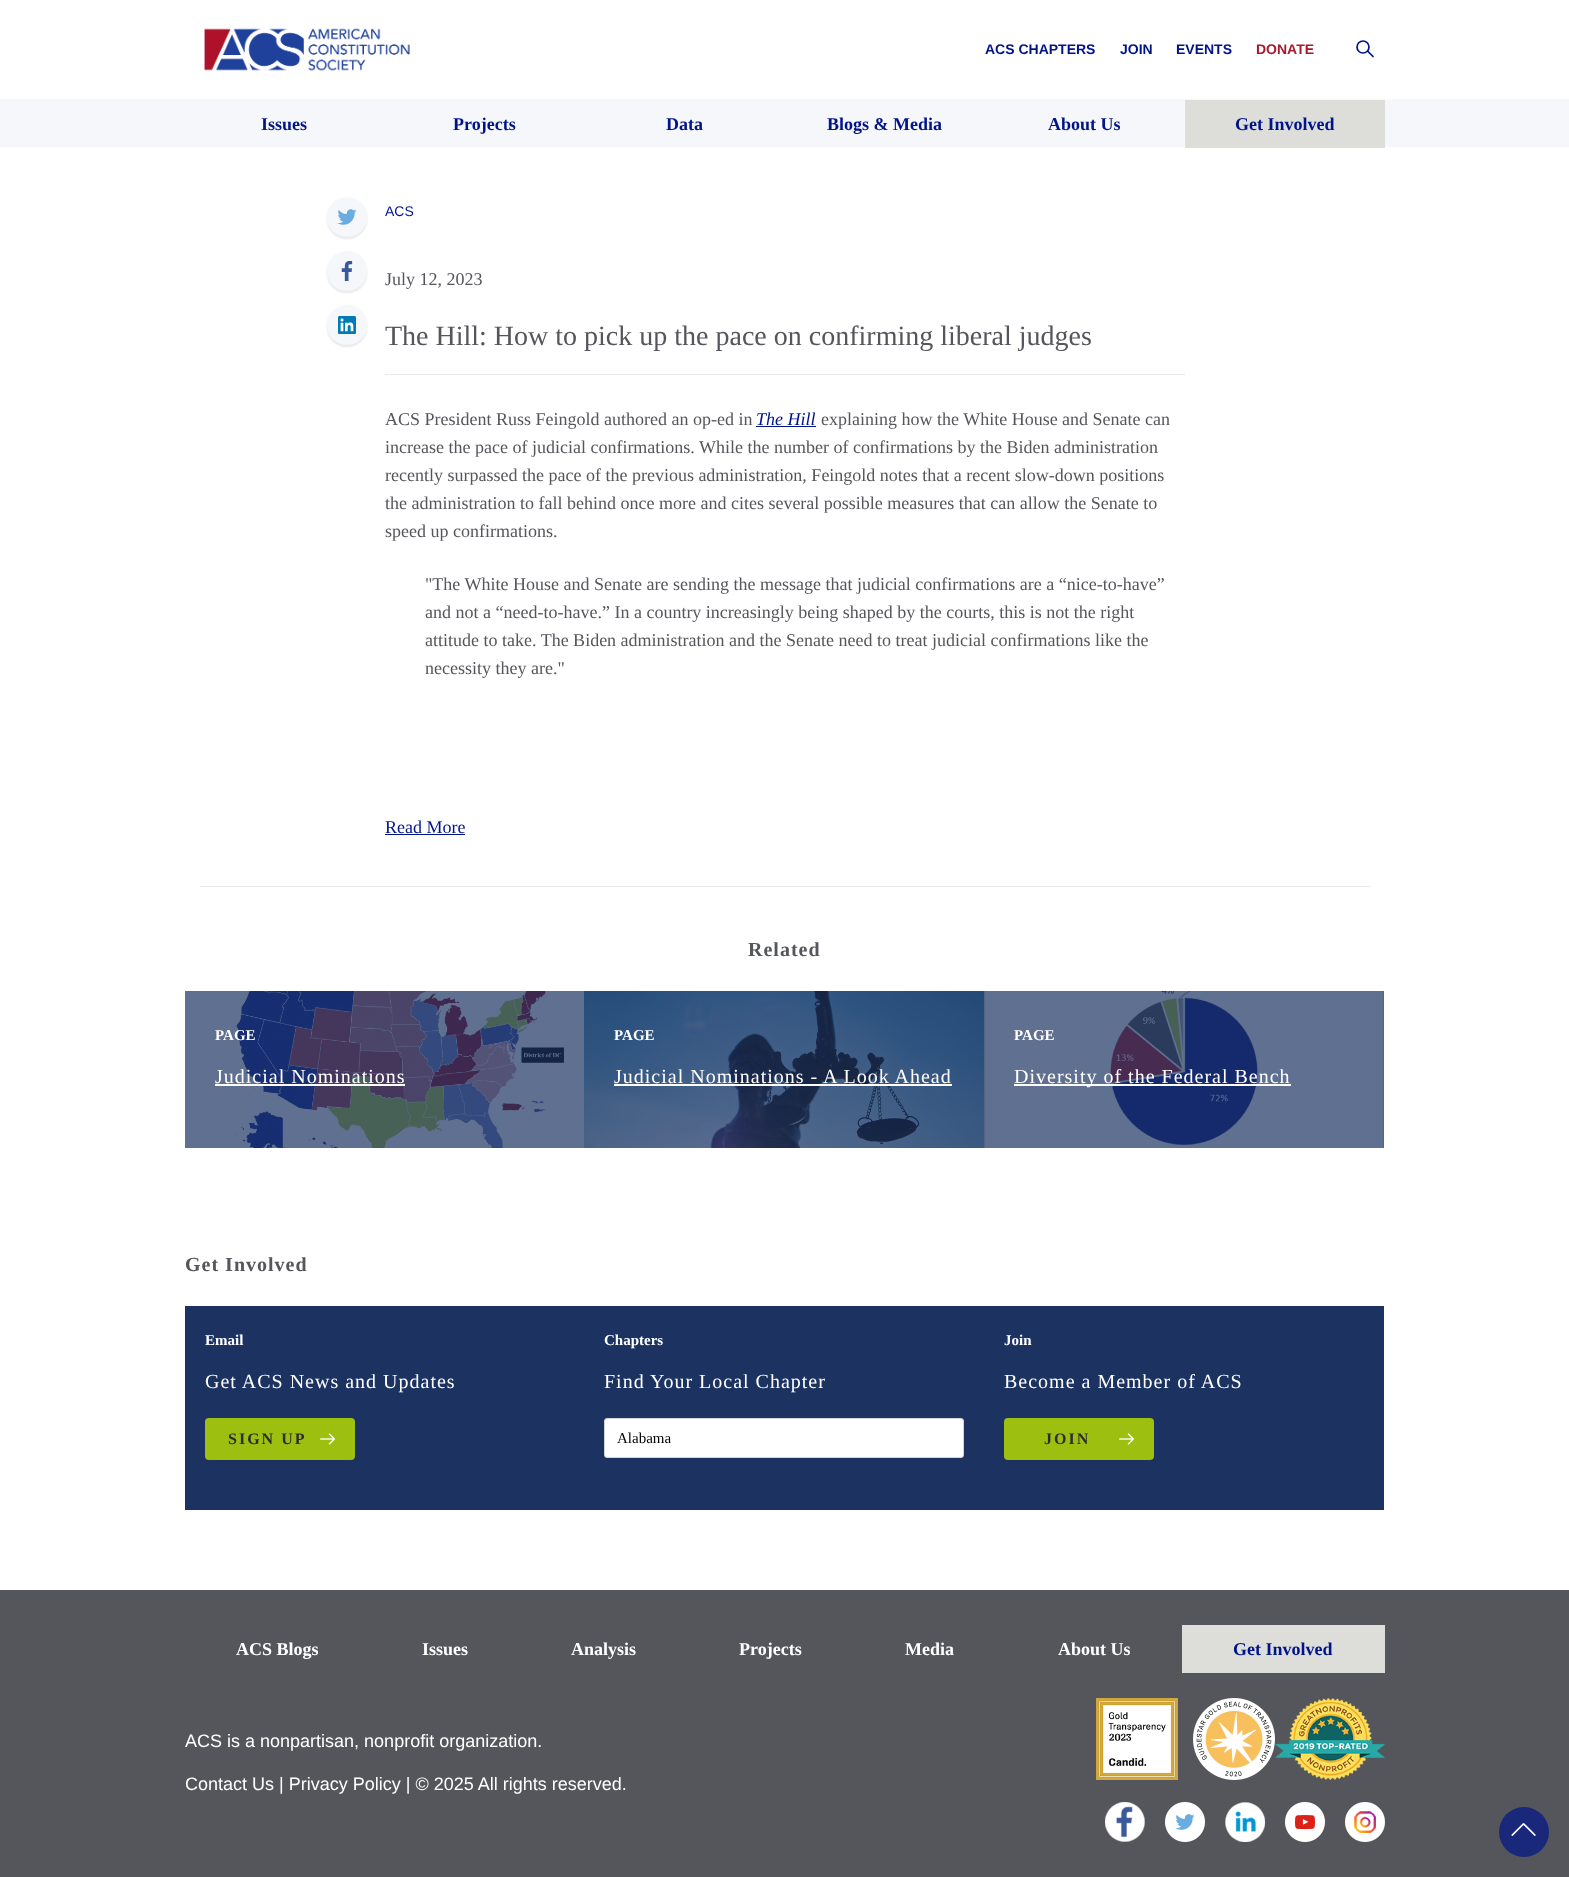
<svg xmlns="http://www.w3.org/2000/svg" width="1569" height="1877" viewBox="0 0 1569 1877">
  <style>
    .t1 { font: bold 14px Liberation Sans; fill: #001489; }
    .t2 { font: bold 14px Liberation Sans; fill: #a6192e; }
    .t3 { font: bold 18px Liberation Serif; fill: #001489; }
    .t4 { font: 14px Liberation Sans; fill: #001489; }
    .t5 { font: 18px Liberation Serif; fill: #55565b; }
    .t6 { font: 28px Liberation Serif; fill: #55565b; }
    .t7 { font: italic 18px Liberation Serif; fill: #001489; }
    .t8 { font: 18px Liberation Serif; fill: #001489; }
    .t9 { font: bold 20px Liberation Serif; letter-spacing: 1px; fill: #55565b; }
    .t10 { font: bold 15px Liberation Serif; fill: #fff; }
    .t11 { font: 20px Liberation Serif; letter-spacing: 1px; fill: #fff; }
    .t12 { font: bold 16px Liberation Serif; letter-spacing: 2px; fill: #2d2d31; }
    .t13 { font: 15px Liberation Serif; fill: #000; }
    .t14 { font: bold 18px Liberation Serif; fill: #fff; }
    .t15 { font: 18px Liberation Sans; fill: #fff; }
  </style>
  <rect width="100%" height="100%" fill="#fff"/>
  <image x="204" y="28" width="206" height="43" href="images/1.png"/>
  <text x="985" y="54" class="t1">ACS CHAPTERS</text>
  <text x="1120" y="54" class="t1">JOIN</text>
  <text x="1176" y="54" class="t1">EVENTS</text>
  <text x="1256" y="54" class="t2">DONATE</text>
  <circle cx="1363" cy="47" r="6" fill="none" stroke="#001489" stroke-width="1.7"/>
  <path d="M1368 51.5L1373 56.5" fill="none" stroke="#001489" stroke-width="1.7" stroke-linecap="round"/>
  <rect x="0" y="99" width="1569" height="48" fill="#f5f7fa"/>
  <text x="261" y="130" class="t3">Issues</text>
  <text x="453" y="130" class="t3">Projects</text>
  <text x="666" y="130" class="t3">Data</text>
  <text x="827" y="130" class="t3">Blogs &amp; Media</text>
  <text x="1048" y="130" class="t3">About Us</text>
  <rect x="1185" y="100" width="200" height="48" fill="#ddddda"/>
  <text x="1235" y="130" class="t3">Get Involved</text>
  <image x="326" y="197" width="42" height="43" href="images/2.png"/>
  <image x="326" y="251" width="42" height="43" href="images/3.png"/>
  <image x="326" y="305" width="42" height="43" href="images/4.png"/>
  <text x="385" y="216" class="t4">ACS</text>
  <text x="385" y="285" class="t5">July 12, 2023</text>
  <text x="385" y="345" class="t6">The Hill: How to pick up the pace on confirming liberal judges</text>
  <rect x="385" y="374" width="800" height="1" fill="#eaeaea"/>
  <text x="385" y="425" class="t5">ACS President Russ Feingold authored an op-ed in</text>
  <text x="756" y="425" class="t7">The Hill</text>
  <rect x="756" y="426" width="60" height="1" fill="#001489"/>
  <text x="821" y="425" class="t5">explaining how the White House and Senate can</text>
  <text x="385" y="453" class="t5">increase the pace of judicial confirmations. While the number of confirmations by the Biden administration</text>
  <text x="385" y="481" class="t5">recently surpassed the pace of the previous administration, Feingold notes that a recent slow-down positions</text>
  <text x="385" y="509" class="t5">the administration to fall behind once more and cites several possible measures that can allow the Senate to</text>
  <text x="385" y="537" class="t5">speed up confirmations.</text>
  <text x="425" y="590" class="t5">"The White House and Senate are sending the message that judicial confirmations are a “nice-to-have”</text>
  <text x="425" y="618" class="t5">and not a “need-to-have.” In a country increasingly being shaped by the courts, this is not the right</text>
  <text x="425" y="646" class="t5">attitude to take. The Biden administration and the Senate need to treat judicial confirmations like the</text>
  <text x="425" y="674" class="t5">necessity they are."</text>
  <text x="385" y="833" class="t8">Read More</text>
  <rect x="385" y="834" width="80" height="1" fill="#001489"/>
  <rect x="200" y="886" width="1170" height="1" fill="#eaeaea"/>
  <text x="748" y="956" class="t9">Related</text>
  <image x="185" y="991" width="399" height="157" href="images/5.png"/>
  <text x="215" y="1040" class="t10">PAGE</text>
  <text x="215" y="1083" class="t11">Judicial Nominations</text>
  <rect x="215" y="1084" width="190" height="2" fill="#fff"/>
  <image x="584" y="991" width="400" height="157" href="images/6.png"/>
  <text x="614" y="1040" class="t10">PAGE</text>
  <text x="614" y="1083" class="t11">Judicial Nominations - A Look Ahead</text>
  <rect x="614" y="1084" width="338" height="2" fill="#fff"/>
  <image x="984" y="991" width="400" height="157" href="images/7.png"/>
  <text x="1014" y="1040" class="t10">PAGE</text>
  <rect x="1014" y="1084" width="277" height="2" fill="#fff"/>
  <text x="1014" y="1083" class="t11">Diversity of the Federal Bench</text>
  <text x="185" y="1271" class="t9">Get Involved</text>
  <rect x="185" y="1306" width="1199" height="204" fill="#1c3361"/>
  <text x="205" y="1345" class="t10">Email</text>
  <text x="205" y="1388" class="t11">Get ACS News and Updates</text>
  <rect x="205" y="1418" width="150" height="42" rx="4" fill="#9cbf10"/>
  <text x="228" y="1444" class="t12">SIGN UP</text>
  <image x="320" y="1433" width="15" height="12" href="images/8.png"/>
  <text x="604" y="1345" class="t10">Chapters</text>
  <text x="604" y="1388" class="t11">Find Your Local Chapter</text>
  <rect x="604.5" y="1418.5" width="359" height="39" rx="2.5" fill="#fff" stroke="#d4d4d4"/>
  <text x="617" y="1443" class="t13">Alabama</text>
  <text x="1004" y="1345" class="t10">Join</text>
  <text x="1004" y="1388" class="t11">Become a Member of ACS</text>
  <rect x="1004" y="1418" width="150" height="42" rx="4" fill="#9cbf10"/>
  <text x="1044" y="1444" class="t12">JOIN</text>
  <image x="1119" y="1433" width="15" height="12" href="images/8.png"/>
  <rect x="0" y="1590" width="1569" height="287" fill="#55565b"/>
  <text x="236" y="1655" class="t14">ACS Blogs</text>
  <text x="422" y="1655" class="t14">Issues</text>
  <text x="571" y="1655" class="t14">Analysis</text>
  <text x="739" y="1655" class="t14">Projects</text>
  <text x="905" y="1655" class="t14">Media</text>
  <text x="1058" y="1655" class="t14">About Us</text>
  <rect x="1182" y="1625" width="203" height="48" fill="#ddddda"/>
  <text x="1233" y="1655" class="t3">Get Involved</text>
  <text x="185" y="1747" class="t15">ACS is a nonpartisan, nonprofit organization.</text>
  <text x="185" y="1790" class="t15">Contact Us | Privacy Policy | © 2025 All rights reserved.</text>
  <image x="1096" y="1698" width="82" height="82" href="images/9.png"/>
  <image x="1193" y="1698" width="82" height="82" href="images/10.png"/>
  <image x="1275" y="1698" width="110" height="82" href="images/11.png"/>
  <image x="1105" y="1802" width="40" height="40" href="images/12.png"/>
  <image x="1165" y="1802" width="40" height="40" href="images/13.png"/>
  <image x="1225" y="1802" width="40" height="40" href="images/14.png"/>
  <image x="1285" y="1802" width="40" height="40" href="images/15.png"/>
  <image x="1345" y="1802" width="40" height="40" href="images/16.png"/>
  <circle cx="1524" cy="1832" r="25" fill="#1a287b"/>
  <image x="1511" y="1823" width="25" height="13" href="images/17.png"/>
</svg>
